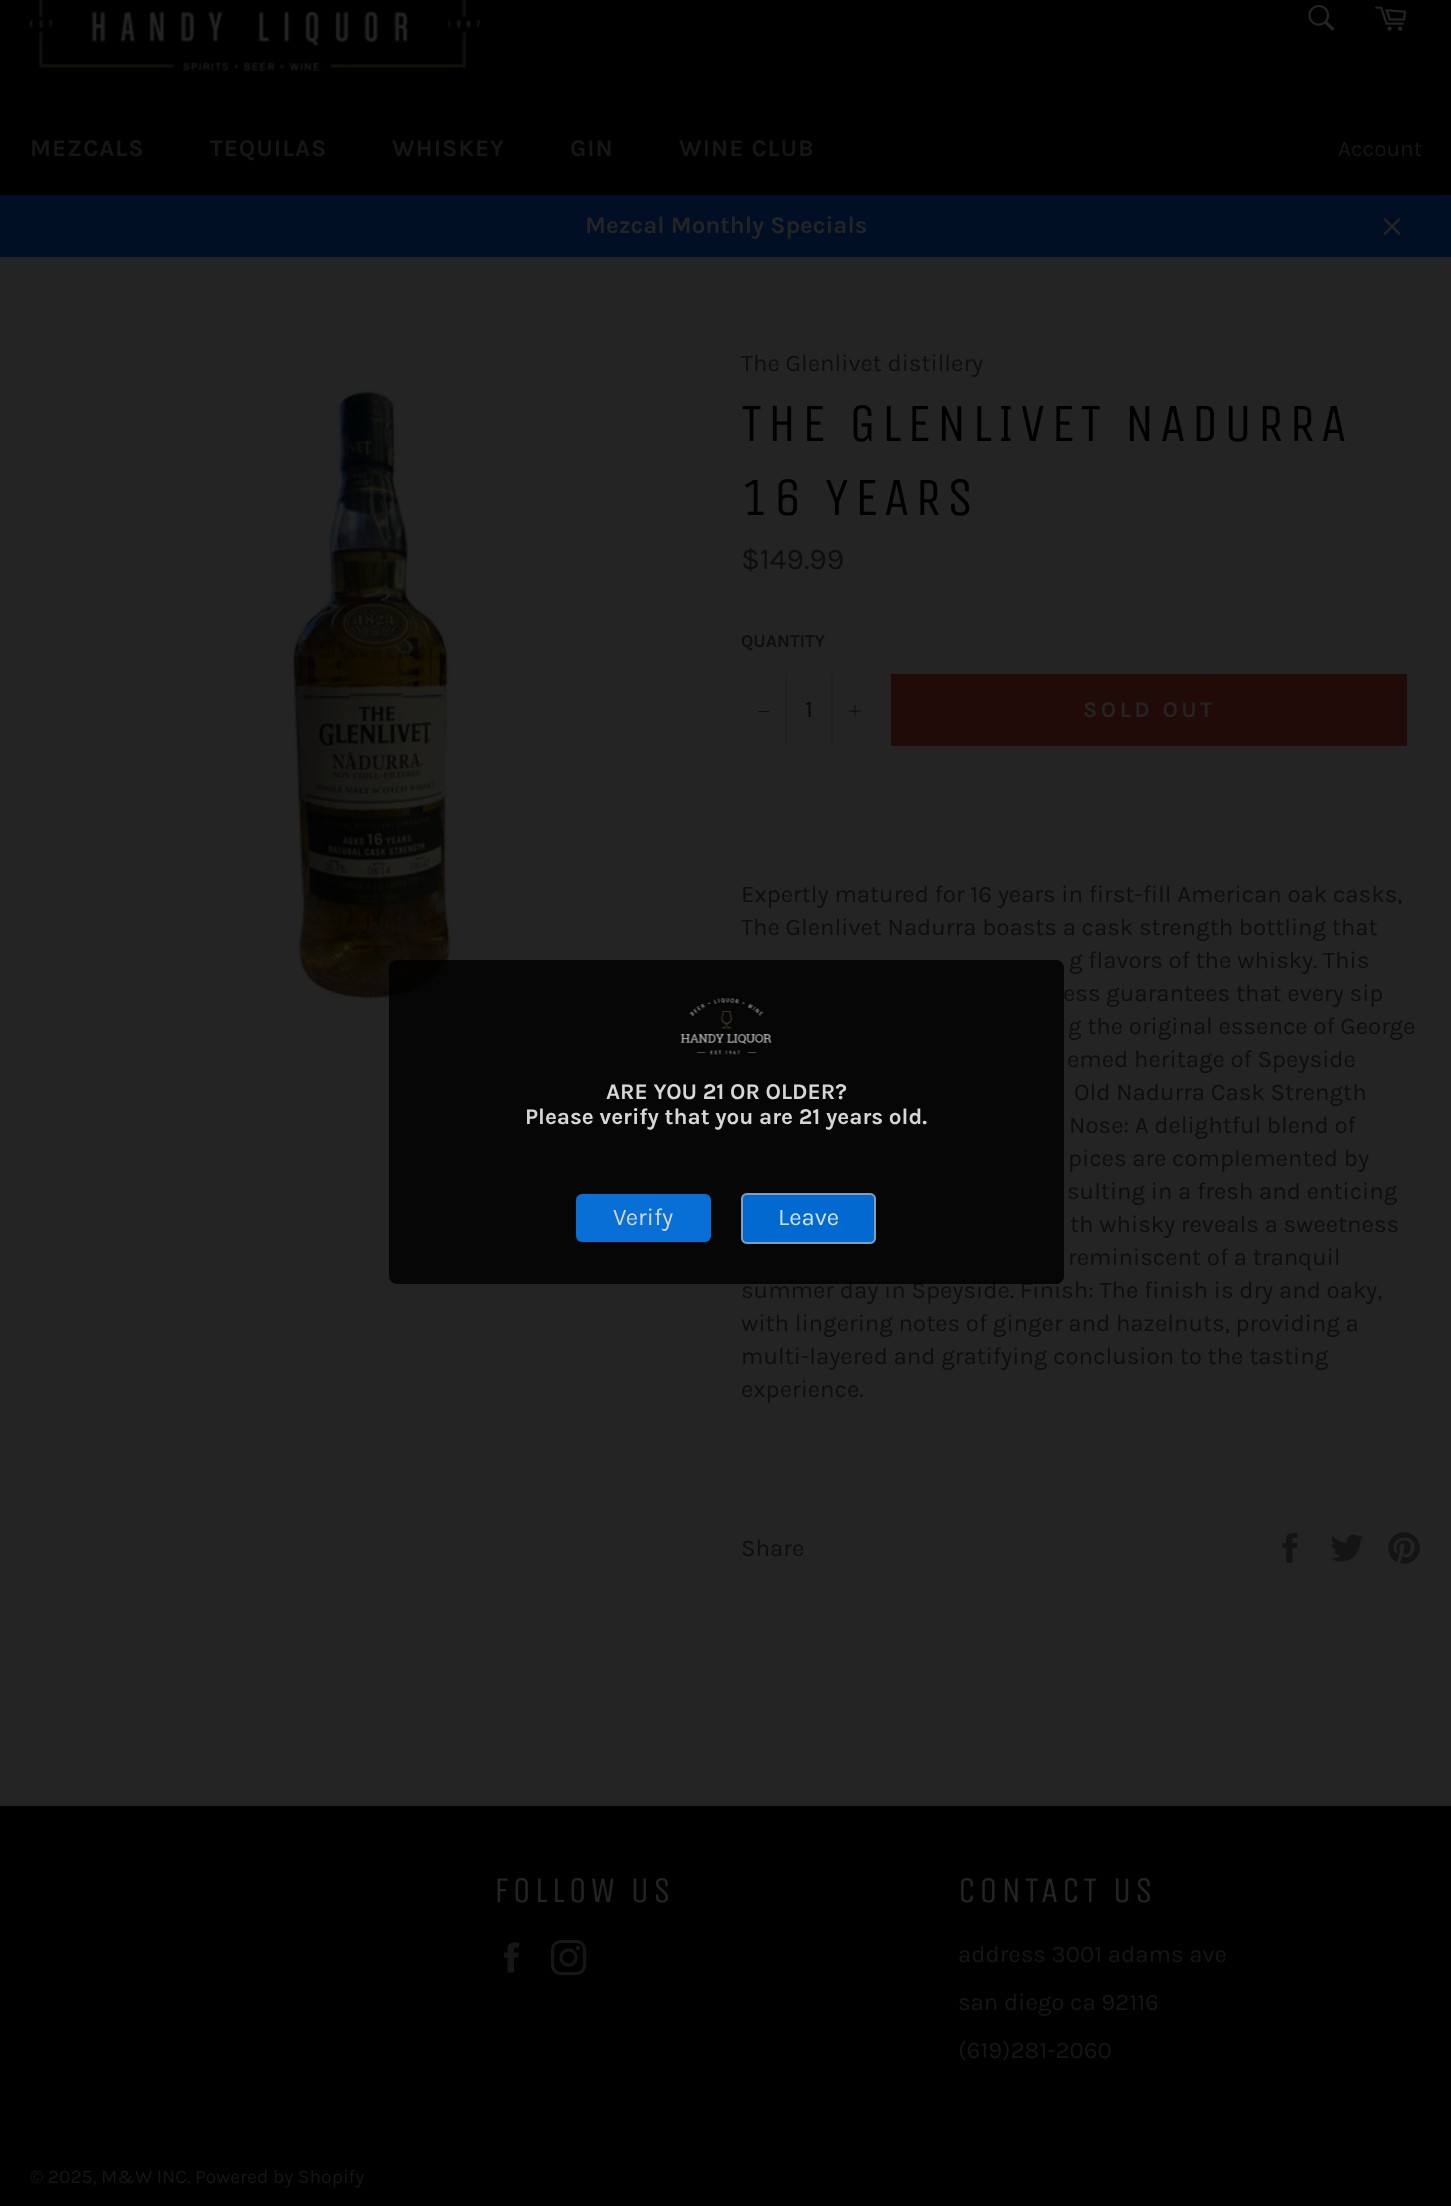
<svg xmlns="http://www.w3.org/2000/svg" width="1451" height="2206" viewBox="0 0 1451 2206">
  <style>
    .t1 { font: bold 24px Karla; letter-spacing: 1px; fill: #161616; }
    .t2 { font: 22.5px Karla; fill: #161616; }
    .t3 { font: bold 24px Karla; fill: #242424; }
    .t4 { font: 24px Karla; fill: #0e0e0e; }
    .t5 { font: 54px Unica One; letter-spacing: 5.4px; fill: #000; }
    .t6 { font: 30px Karla; fill: #0e0e0e; }
    .t7 { font: bold 18px Karla; fill: #0e0e0e; }
    .t8 { font: 24px Karla; fill: #070707; }
    .t9 { font: bold 22.5px Karla; letter-spacing: 3.5px; fill: #242424; }
    .t10 { font: 36px Unica One; letter-spacing: 3.6px; fill: #242424; }
    .t11 { font: 24px Karla; fill: #161616; }
    .t12 { font: 19.25px Karla; fill: #161616; }
    .t13 { font: bold 22.5px Karla; fill: #d6d6d6; }
    .t14 { font: 24px Karla; fill: #d6d6d6; }
    .t15 { font: 24px Karla; fill: #d0e3f6; }
  </style>
  <rect width="100%" height="100%" fill="#000"/>
  <image x="30" y="0" width="450" height="71" href="images/1.png"/>
  <image x="1308" y="4" width="27" height="27" href="images/2.png"/>
  <image x="1375" y="6" width="31" height="25" href="images/3.png"/>
  <text x="30" y="156" class="t1">MEZCALS</text>
  <text x="210" y="156" class="t1">TEQUILAS</text>
  <text x="392" y="156" class="t1">WHISKEY</text>
  <text x="570" y="156" class="t1">GIN</text>
  <text x="679" y="156" class="t1">WINE CLUB</text>
  <text x="1338" y="156" class="t2">Account</text>
  <rect x="0" y="195" width="1451" height="62" fill="#000f24"/>
  <text x="585" y="233" class="t3">Mezcal Monthly Specials</text>
  <image x="1383" y="217" width="18" height="19" href="images/4.png"/>
  <rect x="0" y="257" width="1451" height="1549" fill="#242424"/>
  <image x="290" y="388" width="161" height="616" href="images/5.png"/>
  <text x="741" y="371" class="t4">The Glenlivet distillery</text>
  <text x="741" y="441" class="t5">THE GLENLIVET NADURRA</text>
  <text x="741" y="515" class="t5">16 YEARS</text>
  <text x="741" y="569" class="t6">$149.99</text>
  <text x="741" y="647" class="t7">QUANTITY</text>
  <rect x="785" y="674" width="2" height="72" fill="#202020"/>
  <rect x="758" y="711" width="11" height="1" fill="#0e0e0e"/>
  <text x="805" y="717" class="t8">1</text>
  <rect x="831" y="674" width="2" height="72" fill="#202020"/>
  <image x="849" y="705" width="12" height="12" href="images/6.png"/>
  <rect x="891" y="674" width="516" height="72" fill="#210b09"/>
  <text x="1083" y="717" class="t9">SOLD OUT</text>
  <text x="741" y="902" class="t4">Expertly matured for 16 years in first-fill American oak casks,</text>
  <text x="741" y="935" class="t4">The Glenlivet Nadurra boasts a cask strength bottling that</text>
  <text x="1069" y="968" class="t4">g flavors of the whisky. This</text>
  <text x="1063" y="1001" class="t4">ess guarantees that every sip</text>
  <text x="1068" y="1034" class="t4">g the original essence of George</text>
  <text x="1067" y="1067" class="t4">emed heritage of Speyside</text>
  <text x="1074" y="1100" class="t4">Old Nadurra Cask Strength</text>
  <text x="1069" y="1133" class="t4">Nose: A delightful blend of</text>
  <text x="1068" y="1166" class="t4">pices are complemented by</text>
  <text x="1067" y="1199" class="t4">sulting in a fresh and enticing</text>
  <text x="1070" y="1232" class="t4">th whisky reveals a sweetness</text>
  <text x="1068" y="1265" class="t4">reminiscent of a tranquil</text>
  <text x="741" y="1298" class="t4">summer day in Speyside. Finish: The finish is dry and oaky,</text>
  <text x="741" y="1331" class="t4">with lingering notes of ginger and hazelnuts, providing a</text>
  <text x="741" y="1364" class="t4">multi-layered and gratifying conclusion to the tasting</text>
  <text x="741" y="1397" class="t4">experience.</text>
  <text x="741" y="1556" class="t4">Share</text>
  <image x="1282" y="1533" width="16" height="30" href="images/7.png"/>
  <image x="1330" y="1534" width="34" height="28" href="images/8.png"/>
  <image x="1388" y="1532" width="32" height="32" href="images/9.png"/>
  <text x="494" y="1902" class="t10">FOLLOW US</text>
  <image x="504" y="1942" width="15" height="31" href="images/10.png"/>
  <image x="551" y="1940" width="36" height="36" href="images/11.png"/>
  <text x="958" y="1902" class="t10">CONTACT US</text>
  <text x="958" y="1962" class="t11">address 3001 adams ave</text>
  <text x="958" y="2010" class="t11">san diego ca 92116</text>
  <text x="958" y="2058" class="t11">(619)281-2060</text>
  <text x="30" y="2183" class="t12">© 2025, M&amp;W INC. Powered by Shopify</text>
  <rect x="389" y="960" width="675" height="324" rx="8" fill="#000000cf"/>
  <image x="680" y="998" width="92" height="57" href="images/12.png"/>
  <text x="606" y="1099" class="t13">ARE YOU 21 OR OLDER?</text>
  <text x="525" y="1124" class="t13">Please verify that you are 21 years old.</text>
  <rect x="576" y="1194" width="135" height="48" rx="6" fill="#076fd6"/>
  <text x="613" y="1225" class="t14">Verify</text>
  <rect x="741" y="1193" width="135" height="51" rx="6" fill="#0080ffcf"/>
  <rect x="742" y="1194" width="133" height="49" rx="5" fill="none" stroke="#a9a9a9cf" stroke-width="2"/>
  <text x="778" y="1225" class="t15">Leave</text>
</svg>
